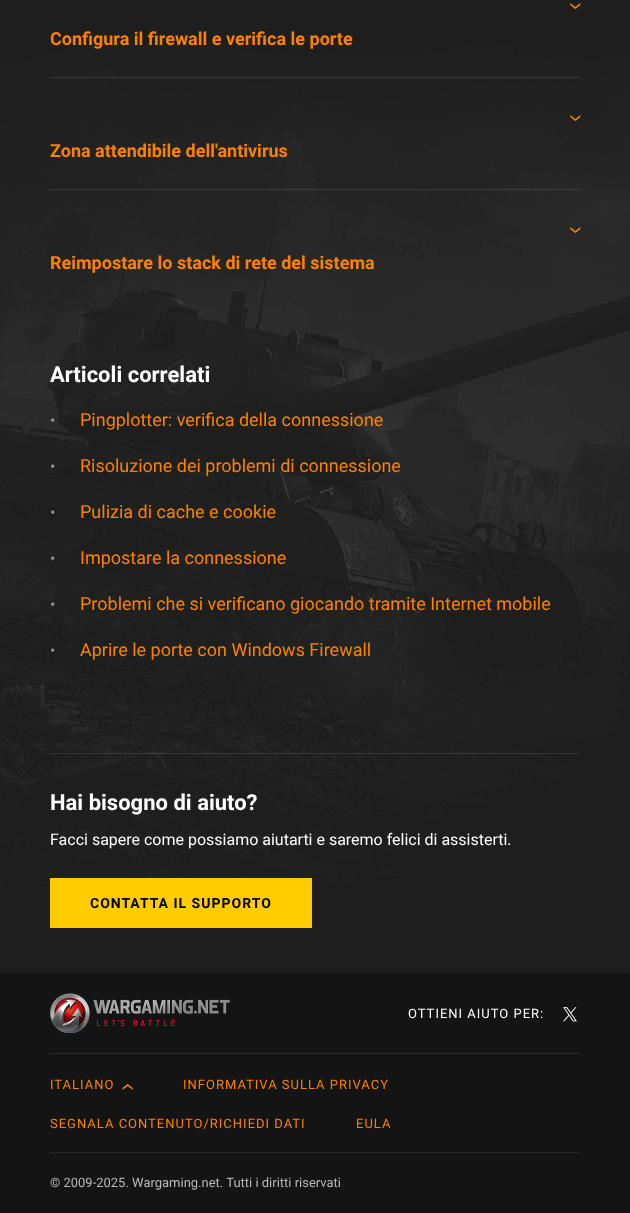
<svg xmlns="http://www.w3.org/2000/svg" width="630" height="1213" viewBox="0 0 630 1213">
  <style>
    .t1 { font: bold 18px Roboto; fill: #fb8200; }
    .t2 { font: bold 22px Roboto; fill: #fff; }
    .t3 { font: 16px Roboto; fill: #929292; }
    .t4 { font: 18px Roboto; fill: #fb8200; }
    .t5 { font: 16px Roboto; fill: #fff; }
    .t6 { font: bold 14px Roboto; letter-spacing: 1px; fill: #000; }
    .t7 { font: 13px Roboto; letter-spacing: 1px; fill: #fff; }
    .t8 { font: 13px Roboto; letter-spacing: 1px; fill: #fb8200; }
    .t9 { font: 13px Roboto; fill: #b9b9b9; }
  </style>
  <rect width="100%" height="100%" fill="#1e1e1e"/>
  <image x="0" y="42" width="630" height="846" href="images/1.png"/>
  <image x="570" y="3" width="11" height="6" href="images/2.png"/>
  <text x="50" y="45" class="t1">Configura il firewall e verifica le porte</text>
  <rect x="50" y="77" width="530" height="1" fill="#363636"/>
  <image x="570" y="115" width="11" height="6" href="images/3.png"/>
  <text x="50" y="157" class="t1">Zona attendibile dell'antivirus</text>
  <rect x="50" y="189" width="530" height="1" fill="#ffffff1a"/>
  <image x="570" y="227" width="11" height="6" href="images/4.png"/>
  <text x="50" y="269" class="t1">Reimpostare lo stack di rete del sistema</text>
  <text x="50" y="382" class="t2">Articoli correlati</text>
  <text x="50" y="426" class="t3">•</text>
  <text x="80" y="426" class="t4">Pingplotter: verifica della connessione</text>
  <text x="50" y="472" class="t3">•</text>
  <text x="80" y="472" class="t4">Risoluzione dei problemi di connessione</text>
  <text x="50" y="518" class="t3">•</text>
  <text x="80" y="518" class="t4">Pulizia di cache e cookie</text>
  <text x="50" y="564" class="t3">•</text>
  <text x="80" y="564" class="t4">Impostare la connessione</text>
  <text x="50" y="610" class="t3">•</text>
  <text x="80" y="610" class="t4">Problemi che si verificano giocando tramite Internet mobile</text>
  <text x="50" y="656" class="t3">•</text>
  <text x="80" y="656" class="t4">Aprire le porte con Windows Firewall</text>
  <rect x="50" y="753" width="530" height="1" fill="#ffffff1a"/>
  <text x="50" y="810" class="t2">Hai bisogno di aiuto?</text>
  <text x="50" y="845" class="t5">Facci sapere come possiamo aiutarti e saremo felici di assisterti.</text>
  <rect x="50" y="878" width="262" height="50" fill="#fc0"/>
  <text x="90" y="908" class="t6">CONTATTA IL SUPPORTO</text>
  <rect x="0" y="973" width="630" height="240" fill="#141414"/>
  <image x="50" y="993" width="180" height="42" href="images/5.png"/>
  <text x="408" y="1018" class="t7">OTTIENI AIUTO PER:</text>
  <image x="563" y="1007" width="14" height="15" href="images/6.png"/>
  <rect x="50" y="1053" width="530" height="1" fill="#2c2c2c"/>
  <text x="50" y="1089" class="t8">ITALIANO</text>
  <image x="122" y="1084" width="11" height="6" href="images/7.png"/>
  <text x="183" y="1089" class="t8">INFORMATIVA SULLA PRIVACY</text>
  <text x="50" y="1128" class="t8">SEGNALA CONTENUTO/RICHIEDI DATI</text>
  <text x="356" y="1128" class="t8">EULA</text>
  <rect x="50" y="1152" width="530" height="1" fill="#252525"/>
  <text x="50" y="1187" class="t9">© 2009-2025. Wargaming.net. Tutti i diritti riservati</text>
</svg>
